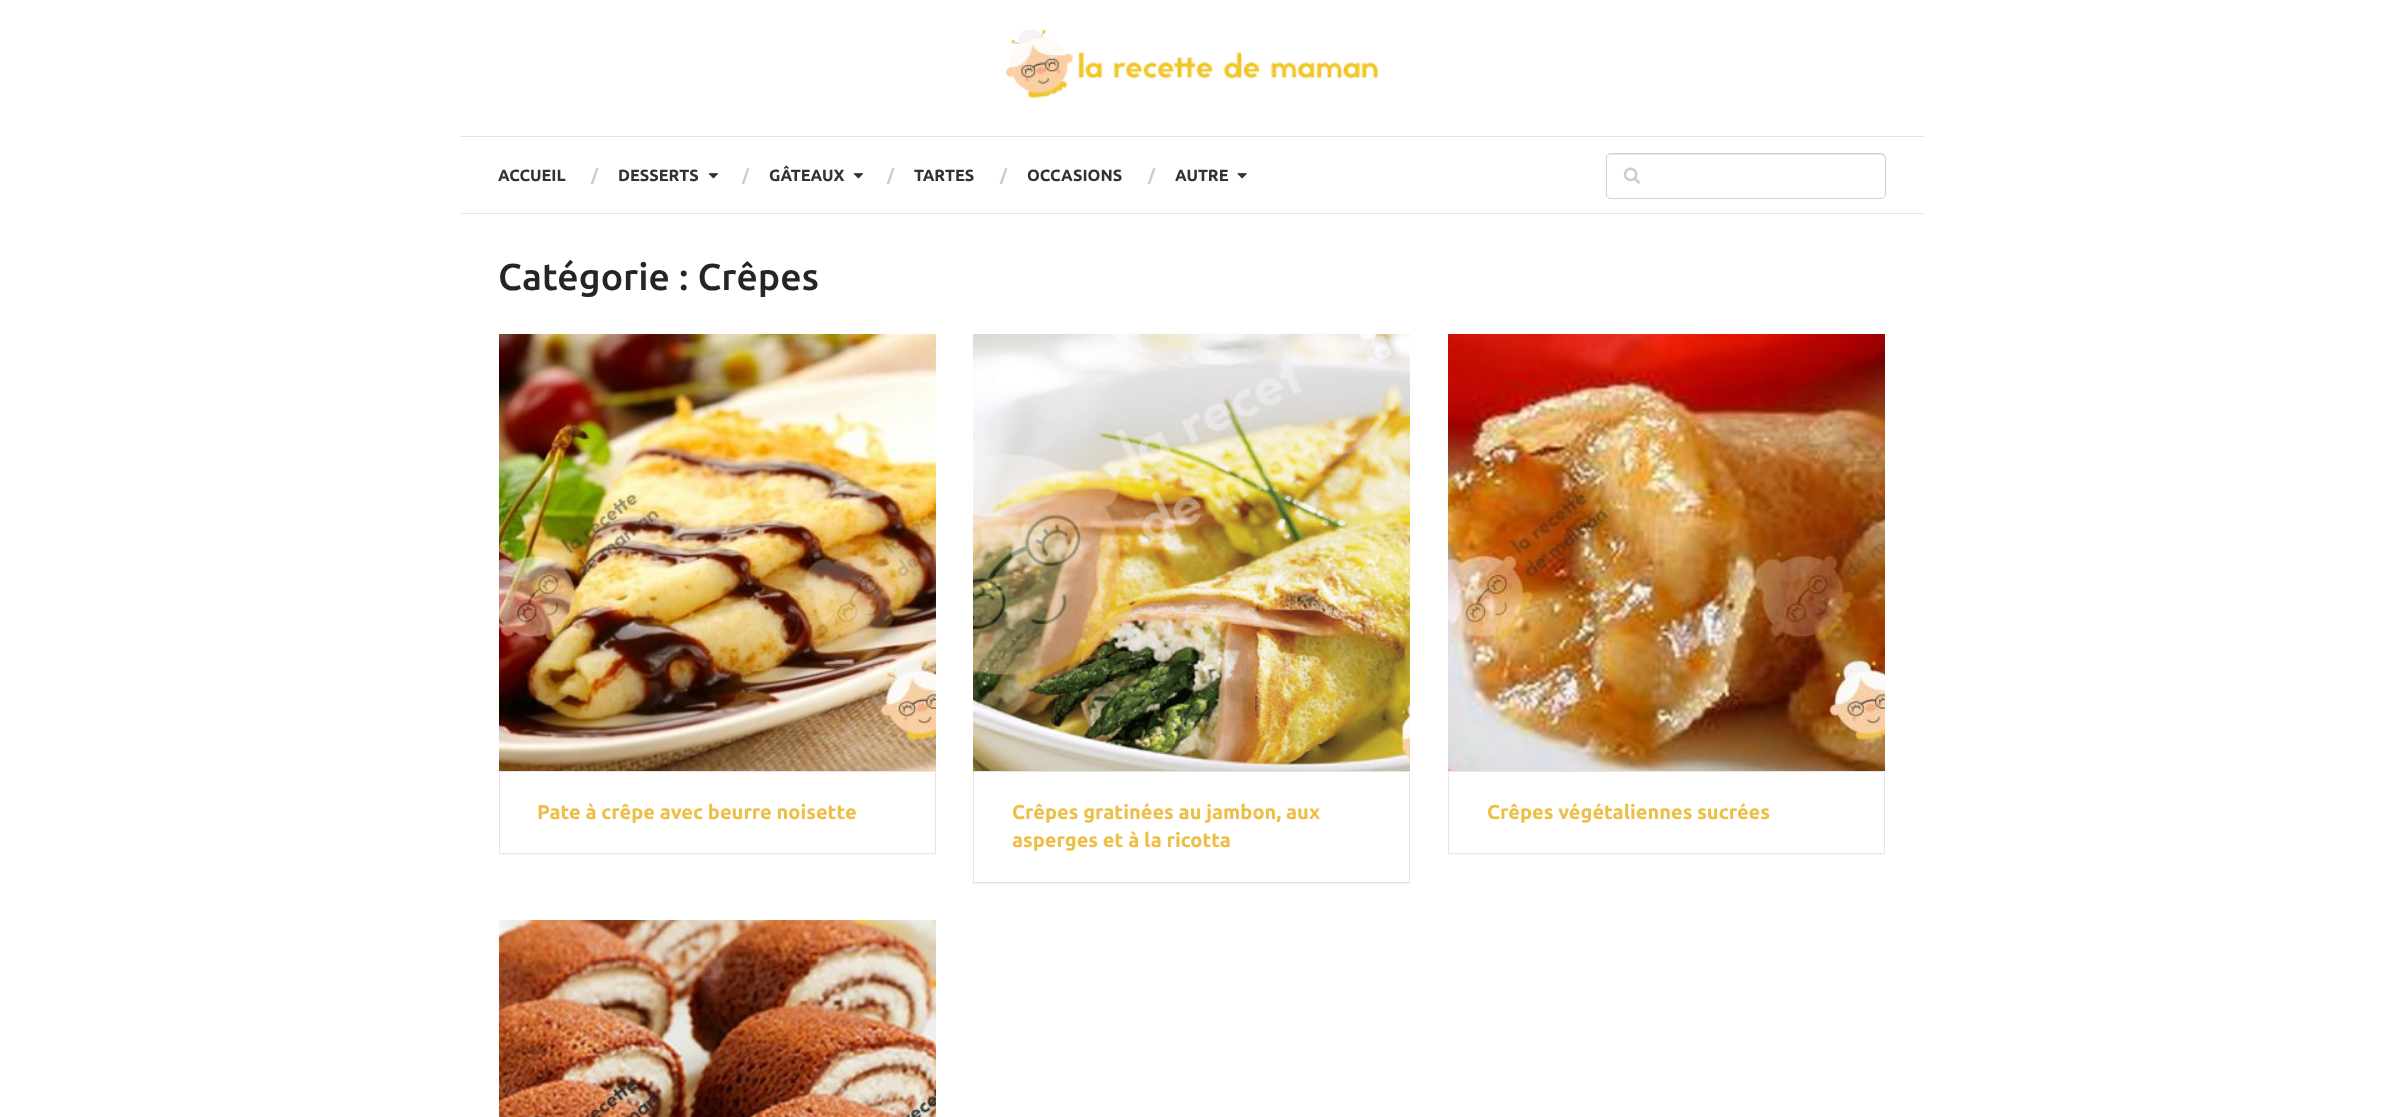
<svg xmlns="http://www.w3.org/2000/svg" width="2383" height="1117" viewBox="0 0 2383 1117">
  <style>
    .t1 { font: bold 16.25px Ubuntu; fill: #333; }
    .t2 { font: bold 16.25px Ubuntu; fill: #ccc; }
    .t3 { font: 500 37.5px Ubuntu; fill: #252525; }
    .t4 { font: bold 20px Ubuntu; fill: #edbf48; }
  </style>
  <rect width="100%" height="100%" fill="#fff"/>
  <rect x="461" y="136" width="1463" height="1" fill="#e1e1e1"/>
  <image x="1006" y="29" width="372" height="69" href="images/1.png"/>
  <rect x="461" y="139" width="1463" height="75" fill="#0000001a" filter="blur(0.5px)"/>
  <rect x="461" y="138" width="1463" height="75" fill="#fff"/>
  <text x="498" y="181" class="t1">ACCUEIL</text>
  <text x="591" y="181" class="t2">/</text>
  <text x="618" y="181" class="t1">DESSERTS</text>
  <image x="708" y="173" width="10" height="6" href="images/2.png"/>
  <text x="742" y="181" class="t2">/</text>
  <text x="769" y="181" class="t1">GÂTEAUX</text>
  <image x="853" y="173" width="10" height="6" href="images/2.png"/>
  <text x="887" y="181" class="t2">/</text>
  <text x="914" y="181" class="t1">TARTES</text>
  <text x="1000" y="181" class="t2">/</text>
  <text x="1027" y="181" class="t1">OCCASIONS</text>
  <text x="1148" y="181" class="t2">/</text>
  <text x="1175" y="181" class="t1">AUTRE</text>
  <image x="1237" y="173" width="10" height="6" href="images/3.png"/>
  <path d="M1611 155H1881C1883 155 1885 157 1885 159C1885 156 1884 154 1881 154H1612C1609 154 1608 156 1608 159C1608 157 1609 155 1611 155Z" fill="#e6e6e6"/>
  <rect x="1606.5" y="153.5" width="279" height="45" rx="4.5" fill="none" stroke="#0000002e"/>
  <image x="1623" y="167" width="17" height="17" href="images/4.png"/>
  <text x="498" y="290" class="t3">Catégorie : Crêpes</text>
  <rect x="499" y="854" width="437" height="1" fill="#f7f7f7"/>
  <image x="499" y="334" width="437" height="437" href="images/5.png"/>
  <rect x="499.5" y="771.5" width="436" height="82" fill="none" stroke="#e6e6e6"/>
  <text x="537" y="819" class="t4">Pate à crêpe avec beurre noisette</text>
  <rect x="973" y="882" width="437" height="2" fill="#f7f7f7"/>
  <image x="973" y="334" width="437" height="437" href="images/6.png"/>
  <rect x="973.5" y="771.5" width="436" height="111" fill="none" stroke="#0000001a"/>
  <text x="1012" y="819" class="t4">Crêpes gratinées au jambon, aux</text>
  <text x="1012" y="847" class="t4">asperges et à la ricotta</text>
  <rect x="1448" y="854" width="437" height="1" fill="#f7f7f7"/>
  <image x="1448" y="334" width="437" height="437" href="images/7.png"/>
  <rect x="1448.5" y="771.5" width="436" height="82" fill="none" stroke="#e6e6e6"/>
  <text x="1487" y="819" class="t4">Crêpes végétaliennes sucrées</text>
  <image x="499" y="920" width="437" height="197" href="images/8.png"/>
</svg>
